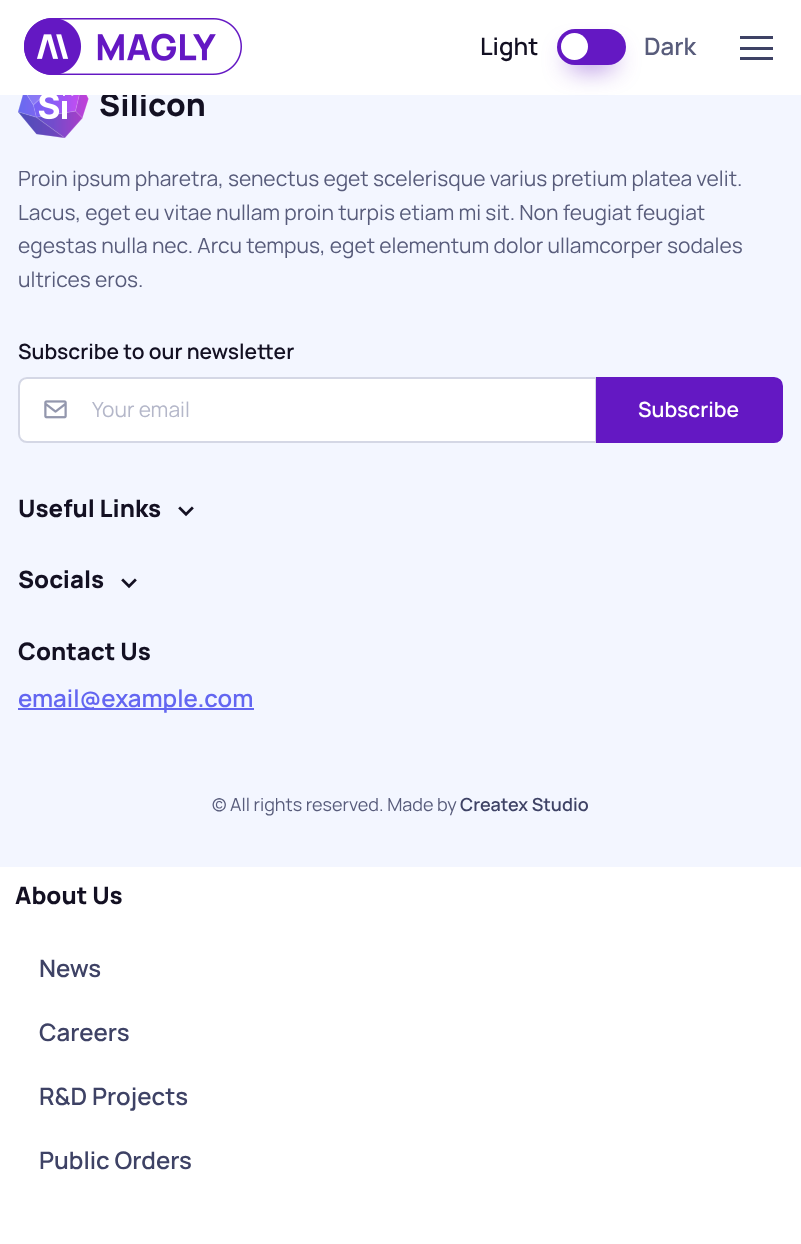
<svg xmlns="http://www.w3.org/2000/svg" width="801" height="1244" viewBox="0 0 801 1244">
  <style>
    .t1 { font: 800 31.5px Manrope; fill: #131022; }
    .t2 { font: 600 24px Manrope; fill: #131022; }
    .t3 { font: 600 24px Manrope; fill: #585c7b; }
    .t4 { font: 21px Manrope; fill: #585c7b; }
    .t5 { font: 600 21px Manrope; fill: #131022; }
    .t6 { font: 21px Manrope; fill: #b4b7c9; }
    .t7 { font: 600 21px Manrope; fill: #fff; }
    .t8 { font: 800 24px Manrope; fill: #131022; }
    .t9 { font: 600 24px Manrope; fill: #6366f1; }
    .t10 { font: 18px Manrope; fill: #585c7b; }
    .t11 { font: 600 18px Manrope; fill: #3e4265; }
    .t12 { font: 600 24px Manrope; fill: #3e4265; }
  </style>
  <rect width="100%" height="100%" fill="#fff"/>
  <rect x="0" y="95" width="801" height="772" fill="#f3f6ff"/>
  <text x="99" y="116" class="t1">Silicon</text>
  <rect x="103" y="92" width="43" height="3" fill="#fff"/>
  <image x="24" y="18" width="218" height="57" href="images/1.png"/>
  <rect x="569" y="53" width="45" height="12" rx="6" fill="#6418c3e6" filter="blur(13.5px)"/>
  <text x="480" y="55" class="t2">Light</text>
  <rect x="557" y="29" width="69" height="36" rx="18" fill="#6418c3"/>
  <circle cx="574.5" cy="46.5" r="13.5" fill="#fff"/>
  <text x="644" y="55" class="t3">Dark</text>
  <rect x="740" y="47" width="33" height="3" fill="#3e4265"/>
  <rect x="740" y="36" width="33" height="3" fill="#3e4265"/>
  <rect x="740" y="57" width="33" height="3" fill="#3e4265"/>
  <image x="18" y="95" width="71" height="43" href="images/2.png"/>
  <text x="18" y="186" class="t4">Proin ipsum pharetra, senectus eget scelerisque varius pretium platea velit.</text>
  <text x="18" y="220" class="t4">Lacus, eget eu vitae nullam proin turpis etiam mi sit. Non feugiat feugiat</text>
  <text x="18" y="253" class="t4">egestas nulla nec. Arcu tempus, eget elementum dolor ullamcorper sodales</text>
  <text x="18" y="287" class="t4">ultrices eros.</text>
  <text x="18" y="359" class="t5">Subscribe to our newsletter</text>
  <path d="M27 378H596V442H27C22.5 442 19 438.5 19 434V386C19 381.5 22.5 378 27 378Z" fill="#fff" stroke="#d4d7e5" stroke-width="2"/>
  <image x="44" y="400" width="23" height="19" href="images/3.png"/>
  <text x="92" y="417" class="t6">Your email</text>
  <path d="M597 378H774C778.5 378 782 381.5 782 386V434C782 438.5 778.5 442 774 442H597Z" fill="#6418c3" stroke="#6418c3" stroke-width="2"/>
  <text x="638" y="417" class="t7">Subscribe</text>
  <text x="18" y="517" class="t8">Useful Links</text>
  <image x="178" y="506" width="16" height="11" href="images/4.png"/>
  <text x="18" y="588" class="t8">Socials</text>
  <image x="121" y="578" width="16" height="11" href="images/4.png"/>
  <text x="18" y="660" class="t8">Contact Us</text>
  <rect x="18" y="708" width="236" height="2" fill="#6366f1"/>
  <text x="18" y="707" class="t9">email@example.com</text>
  <text x="212" y="811" class="t10">© All rights reserved. Made by</text>
  <text x="460" y="811" class="t11">Createx Studio</text>
  <text x="15" y="904" class="t8">About Us</text>
  <text x="39" y="977" class="t12">News</text>
  <text x="39" y="1041" class="t12">Careers</text>
  <text x="39" y="1105" class="t12">R&amp;D Projects</text>
  <text x="39" y="1169" class="t12">Public Orders</text>
</svg>
